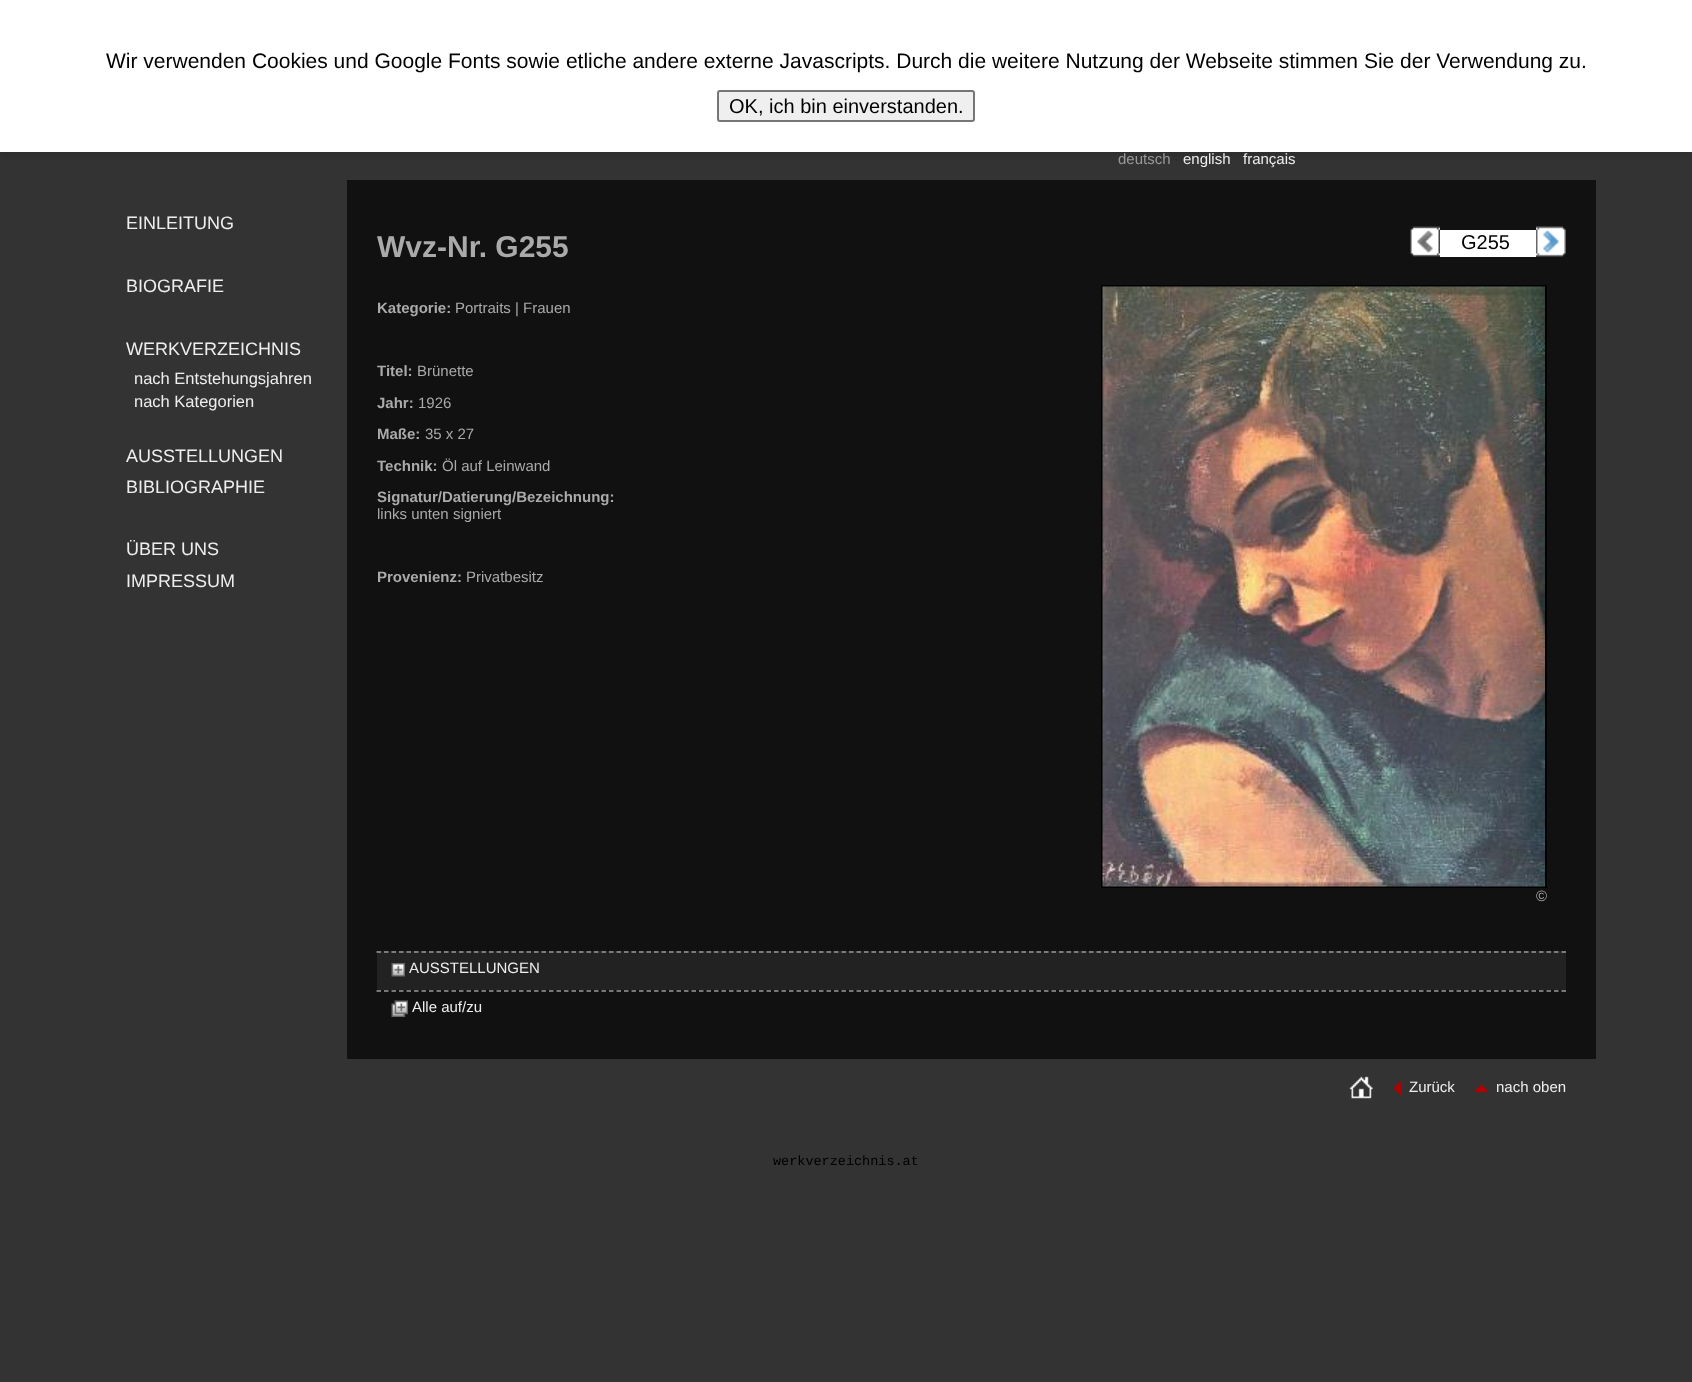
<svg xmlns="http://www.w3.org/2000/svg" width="1692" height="1382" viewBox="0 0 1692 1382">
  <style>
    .t1 { font: 21px Liberation Sans; fill: #000; }
    .t2 { font: 20px Liberation Sans; fill: #000; }
    .t3 { font: 15px Liberation Sans; fill: #999; }
    .t4 { font: 15px Liberation Sans; fill: #eee; }
    .t5 { font: 18px Liberation Sans; fill: #eee; }
    .t6 { font: 16.5px Liberation Sans; fill: #eee; }
    .t7 { font: bold 30px Liberation Sans; fill: #aaa; }
    .t8 { font: bold 15px Liberation Sans; fill: #aaa; }
    .t9 { font: 15px Liberation Sans; fill: #aaa; }
    .t10 { font: 13.5px Liberation Mono; fill: #000; }
  </style>
  <rect width="100%" height="100%" fill="#333"/>
  <rect x="0" y="0" width="1692" height="152" fill="#00000033" filter="blur(4px)"/>
  <rect x="0" y="0" width="1692" height="152" fill="#fff"/>
  <text x="106" y="68" class="t1">Wir verwenden Cookies und Google Fonts sowie etliche andere externe Javascripts. Durch die weitere Nutzung der Webseite stimmen Sie der Verwendung zu.</text>
  <rect x="718" y="91" width="256" height="30" rx="2" fill="#efefef" stroke="#767676" stroke-width="2"/>
  <text x="729" y="113" class="t2">OK, ich bin einverstanden.</text>
  <text x="1118" y="164" class="t3">deutsch</text>
  <text x="1183" y="164" class="t4">english</text>
  <text x="1243" y="164" class="t4">français</text>
  <text x="126" y="229" class="t5">EINLEITUNG</text>
  <text x="126" y="292" class="t5">BIOGRAFIE</text>
  <text x="126" y="355" class="t5">WERKVERZEICHNIS</text>
  <text x="134" y="384" class="t6">nach Entstehungsjahren</text>
  <text x="134" y="407" class="t6">nach Kategorien</text>
  <text x="126" y="462" class="t5">AUSSTELLUNGEN</text>
  <text x="126" y="493" class="t5">BIBLIOGRAPHIE</text>
  <text x="126" y="555" class="t5">ÜBER UNS</text>
  <text x="126" y="587" class="t5">IMPRESSUM</text>
  <rect x="347" y="180" width="1249" height="879" fill="#111"/>
  <text x="377" y="257" class="t7">Wvz-Nr. G255</text>
  <image x="1410" y="226" width="30" height="31" href="images/1.png"/>
  <rect x="1440" y="230" width="96" height="27" fill="#fff"/>
  <text x="1461" y="249" class="t2">G255</text>
  <image x="1536" y="226" width="30" height="31" href="images/2.png"/>
  <text x="377" y="313" class="t8">Kategorie:</text>
  <text x="455" y="313" class="t9">Portraits | Frauen</text>
  <text x="377" y="376" class="t8">Titel:</text>
  <text x="417" y="376" class="t9">Brünette</text>
  <text x="377" y="408" class="t8">Jahr:</text>
  <text x="418" y="408" class="t9">1926</text>
  <text x="377" y="439" class="t8">Maße:</text>
  <text x="425" y="439" class="t9">35 x 27</text>
  <text x="377" y="471" class="t8">Technik:</text>
  <text x="442" y="471" class="t9">Öl auf Leinwand</text>
  <text x="377" y="502" class="t8">Signatur/Datierung/Bezeichnung:</text>
  <text x="377" y="519" class="t9">links unten signiert</text>
  <text x="377" y="582" class="t8">Provenienz:</text>
  <text x="466" y="582" class="t9">Privatbesitz</text>
  <rect x="1102" y="286" width="444" height="601" fill="none" stroke="#000" stroke-width="2"/>
  <image x="1102" y="286" width="443" height="601" href="images/3.png"/>
  <text x="1536" y="901" class="t9">©</text>
  <rect x="377" y="951" width="1189" height="39" fill="#222"/>
  <path d="M376.5 952H1566" fill="none" stroke="#999" stroke-width="1.5" stroke-dasharray="4.5 3"/>
  <image x="391" y="963" width="14" height="14" href="images/4.png"/>
  <text x="409" y="973" class="t4">AUSSTELLUNGEN</text>
  <path d="M376.5 991H1566" fill="none" stroke="#999" stroke-width="1.5" stroke-dasharray="4.5 3"/>
  <image x="391" y="1000" width="17" height="17" href="images/5.png"/>
  <text x="412" y="1012" class="t4">Alle auf/zu</text>
  <image x="1349" y="1076" width="24" height="23" href="images/6.png"/>
  <image x="1393" y="1081" width="9" height="15" href="images/7.png"/>
  <text x="1409" y="1092" class="t4">Zurück</text>
  <image x="1474" y="1084" width="15" height="9" href="images/8.png"/>
  <text x="1496" y="1092" class="t4">nach oben</text>
  <text x="773" y="1165" class="t10">werkverzeichnis.at</text>
</svg>
